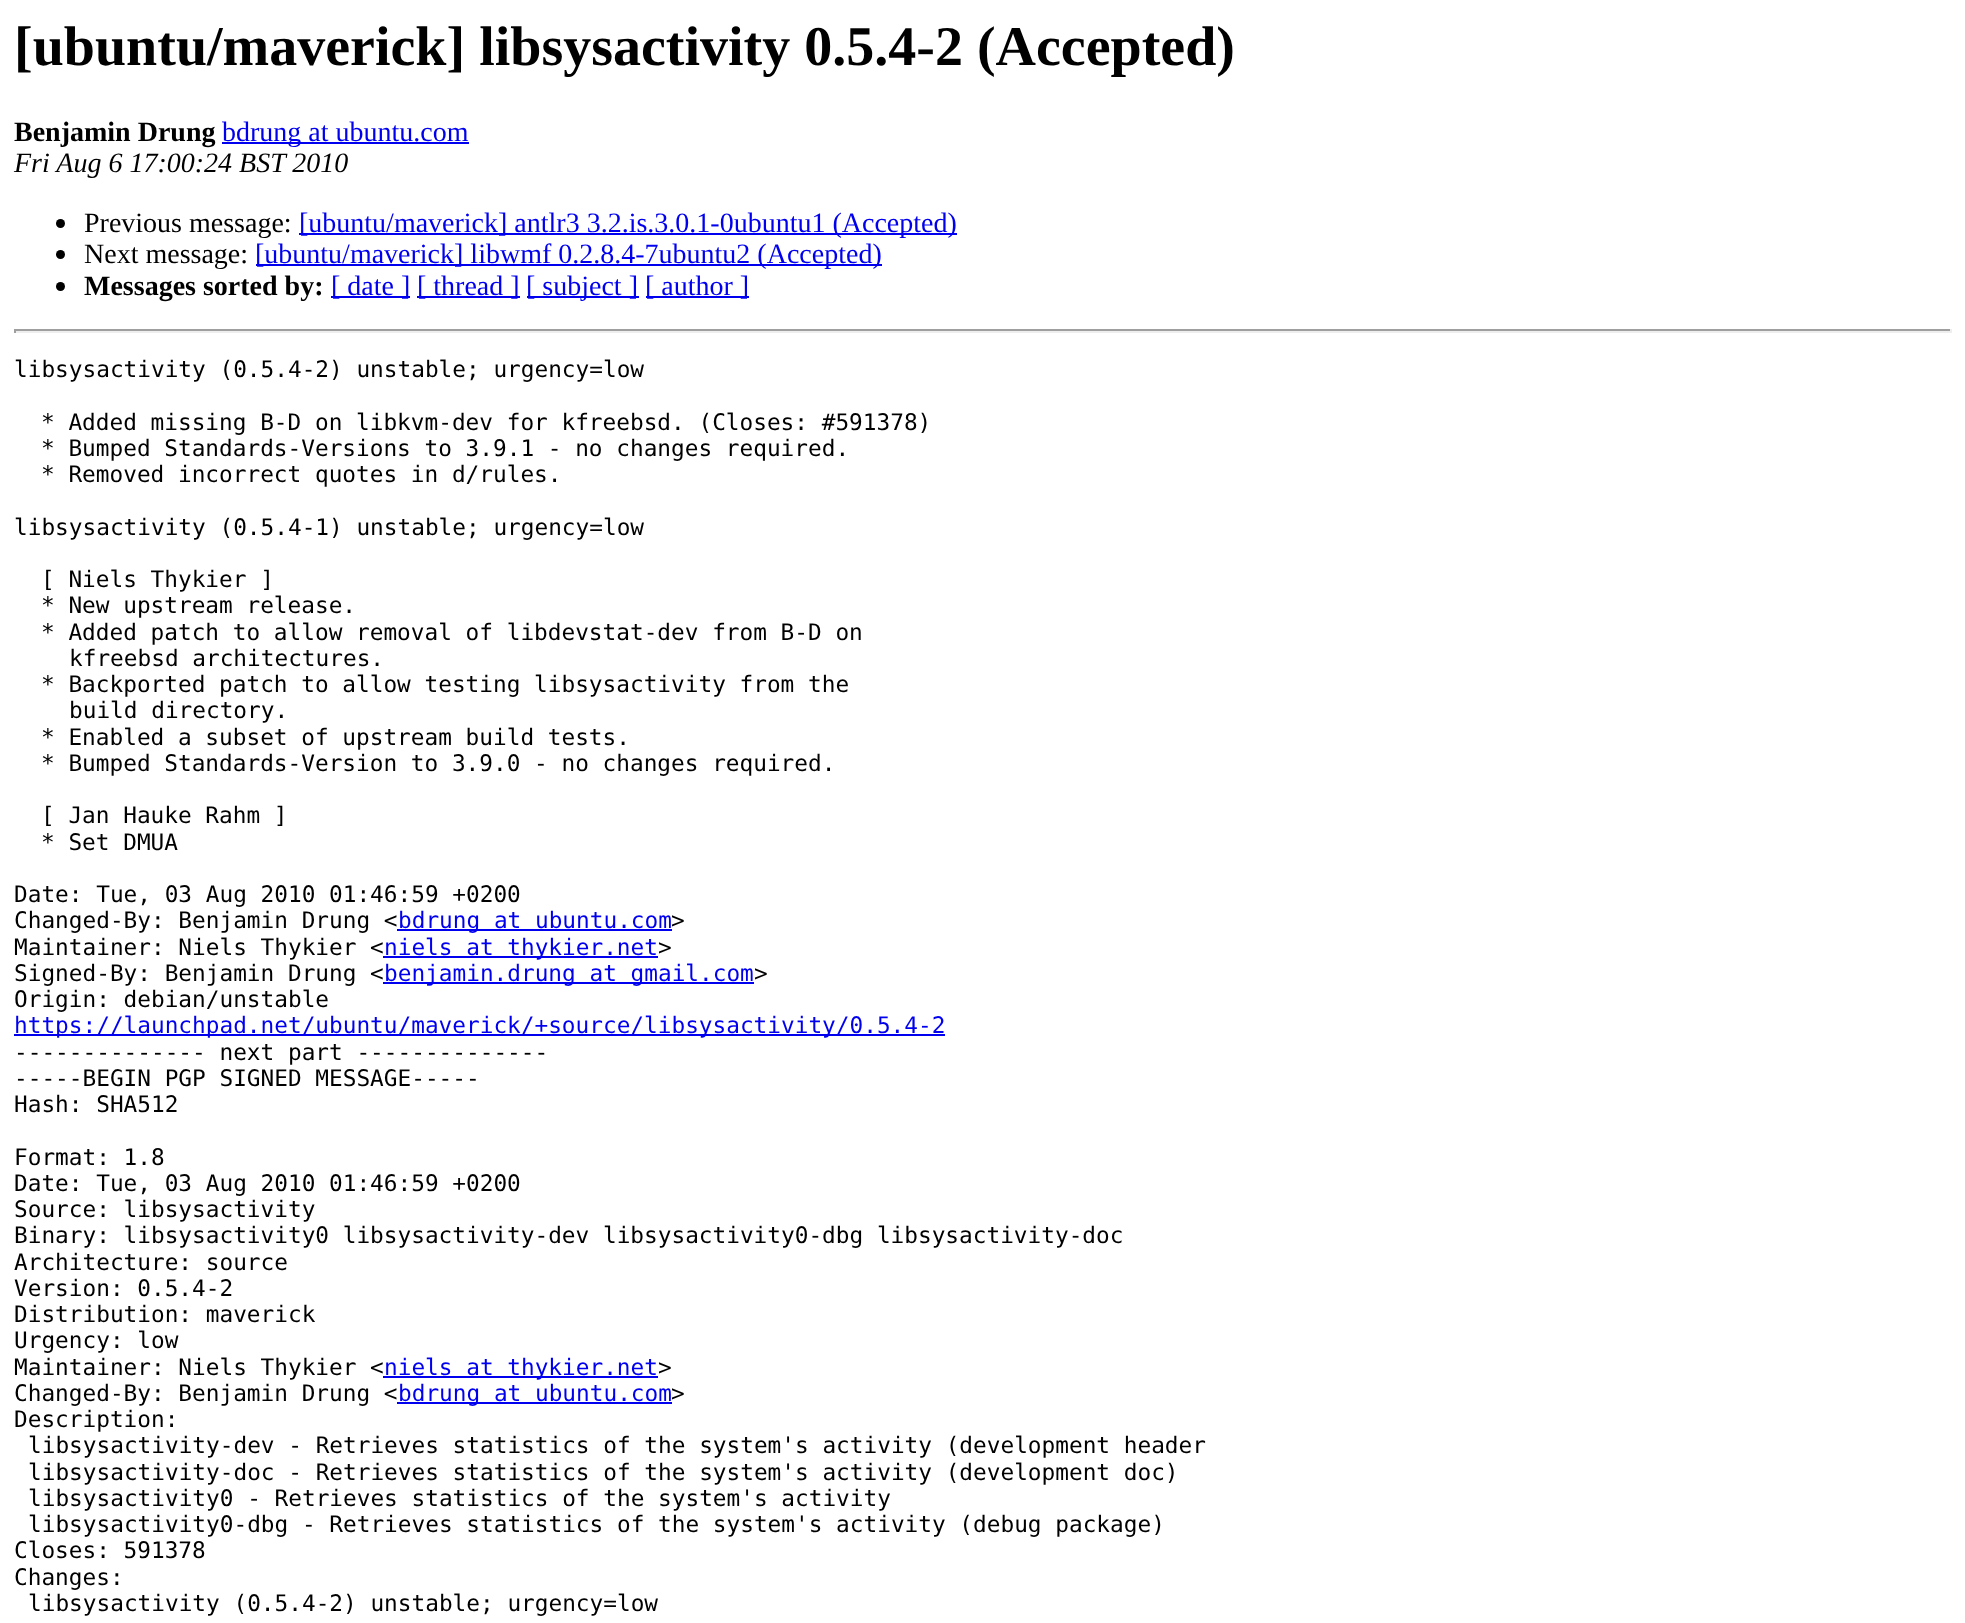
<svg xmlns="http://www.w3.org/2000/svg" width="1965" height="1623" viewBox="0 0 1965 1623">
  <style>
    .t1 { font: bold 56px Liberation Serif; fill: #000; }
    .t2 { font: bold 28px Liberation Serif; fill: #000; }
    .t3 { font: 28px Liberation Serif; fill: #00e; }
    .t4 { font: italic 28px Liberation Serif; fill: #000; }
    .t5 { font: 28px Liberation Serif; fill: #000; }
    .t6 { font: 22.75px DejaVu Sans Mono; fill: #000; }
    .t7 { font: 22.75px DejaVu Sans Mono; fill: #00e; }
  </style>
  <rect width="100%" height="100%" fill="#fff"/>
  <text x="14" y="65" class="t1">[ubuntu/maverick] libsysactivity 0.5.4-2 (Accepted)</text>
  <text x="14" y="141" class="t2">Benjamin Drung</text>
  <rect x="222" y="142" width="247" height="2" fill="#00e"/>
  <text x="222" y="141" class="t3">bdrung at ubuntu.com</text>
  <text x="14" y="172" class="t4">Fri Aug 6 17:00:24 BST 2010</text>
  <circle cx="60.5" cy="223.5" r="4.5" fill="#000"/>
  <text x="84" y="232" class="t5">Previous message:</text>
  <rect x="299" y="233" width="658" height="2" fill="#00e"/>
  <text x="299" y="232" class="t3">[ubuntu/maverick] antlr3 3.2.is.3.0.1-0ubuntu1 (Accepted)</text>
  <circle cx="60.5" cy="254.5" r="4.5" fill="#000"/>
  <text x="84" y="263" class="t5">Next message:</text>
  <rect x="256" y="264" width="626" height="2" fill="#00e"/>
  <text x="255" y="263" class="t3">[ubuntu/maverick] libwmf 0.2.8.4-7ubuntu2 (Accepted)</text>
  <circle cx="60.5" cy="286.5" r="4.5" fill="#000"/>
  <text x="84" y="295" class="t2">Messages sorted by:</text>
  <rect x="331" y="296" width="79" height="2" fill="#00e"/>
  <text x="331" y="295" class="t3">[ date ]</text>
  <rect x="417" y="296" width="103" height="2" fill="#00e"/>
  <text x="417" y="295" class="t3">[ thread ]</text>
  <rect x="527" y="296" width="112" height="2" fill="#00e"/>
  <text x="526" y="295" class="t3">[ subject ]</text>
  <rect x="646" y="296" width="103" height="2" fill="#00e"/>
  <text x="645" y="295" class="t3">[ author ]</text>
  <rect x="14" y="329" width="1937" height="2" fill="#9f9f9f"/>
  <rect x="1950" y="329" width="2" height="4" fill="#eee"/>
  <rect x="14" y="331" width="1937" height="2" fill="#eee"/>
  <rect x="14" y="329" width="2" height="4" fill="#9f9f9f"/>
  <text x="14" y="377" class="t6">libsysactivity (0.5.4-2) unstable; urgency=low</text>
  <text x="41" y="430" class="t6">* Added missing B-D on libkvm-dev for kfreebsd. (Closes: #591378)</text>
  <text x="41" y="456" class="t6">* Bumped Standards-Versions to 3.9.1 - no changes required.</text>
  <text x="41" y="482" class="t6">* Removed incorrect quotes in d/rules.</text>
  <text x="14" y="535" class="t6">libsysactivity (0.5.4-1) unstable; urgency=low</text>
  <text x="41" y="587" class="t6">[ Niels Thykier ]</text>
  <text x="41" y="613" class="t6">* New upstream release.</text>
  <text x="41" y="640" class="t6">* Added patch to allow removal of libdevstat-dev from B-D on</text>
  <text x="69" y="666" class="t6">kfreebsd architectures.</text>
  <text x="41" y="692" class="t6">* Backported patch to allow testing libsysactivity from the</text>
  <text x="69" y="718" class="t6">build directory.</text>
  <text x="41" y="745" class="t6">* Enabled a subset of upstream build tests.</text>
  <text x="41" y="771" class="t6">* Bumped Standards-Version to 3.9.0 - no changes required.</text>
  <text x="41" y="823" class="t6">[ Jan Hauke Rahm ]</text>
  <text x="41" y="850" class="t6">* Set DMUA</text>
  <text x="14" y="902" class="t6">Date: Tue, 03 Aug 2010 01:46:59 +0200</text>
  <text x="14" y="928" class="t6">Changed-By: Benjamin Drung &lt;</text>
  <rect x="397" y="929" width="275" height="2" fill="#00e"/>
  <text x="398" y="928" class="t7">bdrung at ubuntu.com</text>
  <text x="671" y="928" class="t6">&gt;</text>
  <text x="14" y="955" class="t6">Maintainer: Niels Thykier &lt;</text>
  <rect x="383" y="956" width="275" height="2" fill="#00e"/>
  <text x="384" y="955" class="t7">niels at thykier.net</text>
  <text x="658" y="955" class="t6">&gt;</text>
  <text x="14" y="981" class="t6">Signed-By: Benjamin Drung &lt;</text>
  <rect x="383" y="982" width="371" height="2" fill="#00e"/>
  <text x="384" y="981" class="t7">benjamin.drung at gmail.com</text>
  <text x="754" y="981" class="t6">&gt;</text>
  <text x="14" y="1007" class="t6">Origin: debian/unstable</text>
  <rect x="14" y="1034" width="931" height="2" fill="#00e"/>
  <text x="14" y="1033" class="t7">https://launchpad.net/ubuntu/maverick/+source/libsysactivity/0.5.4-2</text>
  <text x="14" y="1060" class="t6">-------------- next part --------------</text>
  <text x="14" y="1086" class="t6">-----BEGIN PGP SIGNED MESSAGE-----</text>
  <text x="14" y="1112" class="t6">Hash: SHA512</text>
  <text x="14" y="1165" class="t6">Format: 1.8</text>
  <text x="14" y="1191" class="t6">Date: Tue, 03 Aug 2010 01:46:59 +0200</text>
  <text x="14" y="1217" class="t6">Source: libsysactivity</text>
  <text x="14" y="1243" class="t6">Binary: libsysactivity0 libsysactivity-dev libsysactivity0-dbg libsysactivity-doc</text>
  <text x="14" y="1270" class="t6">Architecture: source</text>
  <text x="14" y="1296" class="t6">Version: 0.5.4-2</text>
  <text x="14" y="1322" class="t6">Distribution: maverick</text>
  <text x="14" y="1348" class="t6">Urgency: low</text>
  <text x="14" y="1375" class="t6">Maintainer: Niels Thykier &lt;</text>
  <rect x="383" y="1376" width="275" height="2" fill="#00e"/>
  <text x="384" y="1375" class="t7">niels at thykier.net</text>
  <text x="658" y="1375" class="t6">&gt;</text>
  <text x="14" y="1401" class="t6">Changed-By: Benjamin Drung &lt;</text>
  <rect x="397" y="1402" width="275" height="2" fill="#00e"/>
  <text x="398" y="1401" class="t7">bdrung at ubuntu.com</text>
  <text x="671" y="1401" class="t6">&gt;</text>
  <text x="14" y="1427" class="t6">Description:</text>
  <text x="28" y="1453" class="t6">libsysactivity-dev - Retrieves statistics of the system's activity (development header</text>
  <text x="28" y="1480" class="t6">libsysactivity-doc - Retrieves statistics of the system's activity (development doc)</text>
  <text x="28" y="1506" class="t6">libsysactivity0 - Retrieves statistics of the system's activity</text>
  <text x="28" y="1532" class="t6">libsysactivity0-dbg - Retrieves statistics of the system's activity (debug package)</text>
  <text x="14" y="1558" class="t6">Closes: 591378</text>
  <text x="14" y="1585" class="t6">Changes:</text>
  <text x="28" y="1611" class="t6">libsysactivity (0.5.4-2) unstable; urgency=low</text>
</svg>
